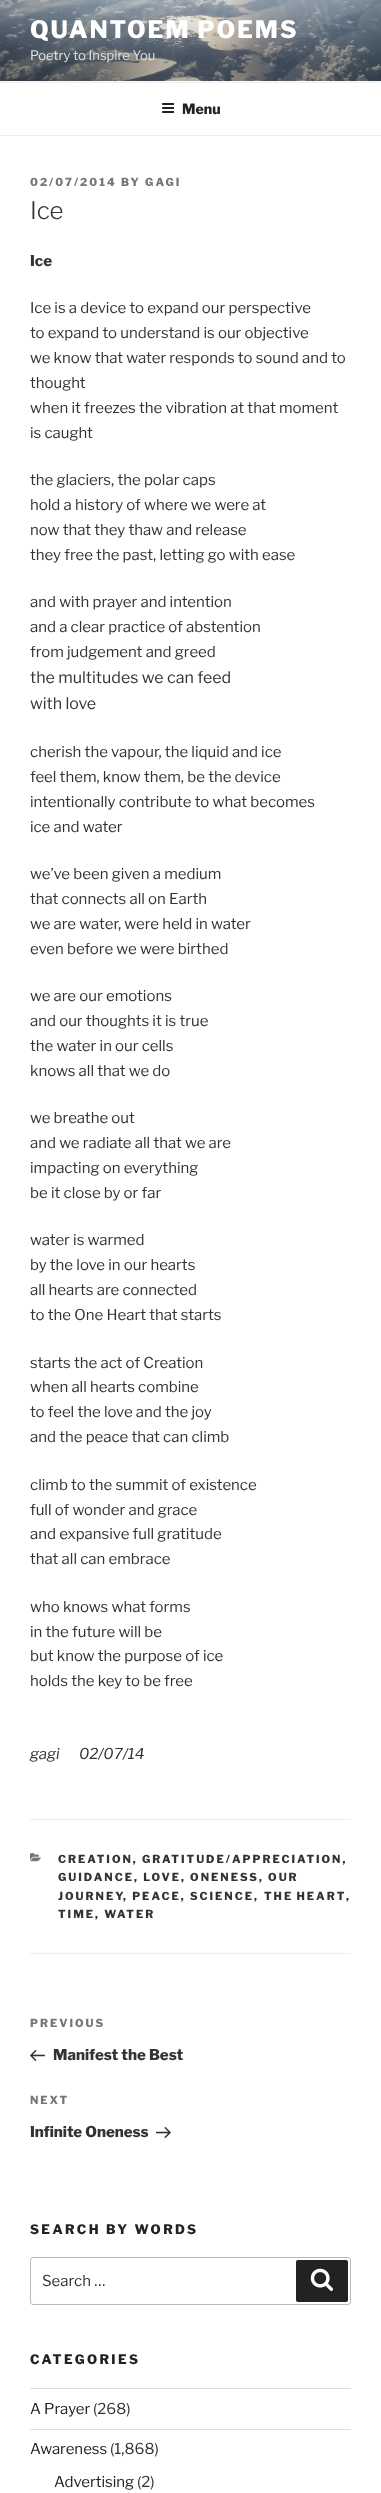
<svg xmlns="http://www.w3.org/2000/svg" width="381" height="2493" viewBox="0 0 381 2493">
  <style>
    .t1 { font: 100 24px Libre Franklin; letter-spacing: 1.9px; fill: #fff; }
    .t2 { font: 100 13px 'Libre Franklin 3'; fill: #dfe0e1; }
    .t3 { font: 100 14px Libre Franklin; fill: #222; }
    .t4 { font: 100 11px Libre Franklin; letter-spacing: 2px; fill: #767676; }
    .t5 { font: 100 24px 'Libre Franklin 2'; fill: #333; }
    .t6 { font: 100 15px Libre Franklin; fill: #333; }
    .t7 { font: 100 15px 'Libre Franklin 3'; fill: #333; }
    .t8 { font: 100 16px 'Libre Franklin 3'; fill: #333; }
    .t9 { font: italic 100 15px Libre Franklin; fill: #333; }
    .t10 { font: 100 11px Libre Franklin; letter-spacing: 2px; fill: #333; }
    .t11 { font: 100 13px Libre Franklin; letter-spacing: 2.4px; fill: #222; }
    .t12 { font: 100 15px 'Libre Franklin 3'; fill: #222; }
  </style>
  <rect width="100%" height="100%" fill="#fff"/>
  <rect x="0" y="81" width="381" height="1" fill="#fafafa"/>
  <image x="0" y="0" width="381" height="81" href="images/1.png"/>
  <text x="30" y="38" class="t1">QUANTOEM POEMS</text>
  <text x="30" y="60" class="t2">Poetry to Inspire You</text>
  <rect x="0" y="82" width="381" height="1" fill="#eee"/>
  <rect x="0" y="135" width="381" height="1" fill="#eee"/>
  <image x="162" y="103" width="13" height="10" href="images/2.png"/>
  <text x="182" y="114" class="t3">Menu</text>
  <text x="30" y="186" class="t4">02/07/2014 BY GAGI</text>
  <text x="30" y="219" class="t5">Ice</text>
  <text x="30" y="266" class="t6">Ice</text>
  <text x="30" y="313" class="t7">Ice is a device to expand our perspective</text>
  <text x="30" y="338" class="t7">to expand to understand is our objective</text>
  <text x="30" y="363" class="t7">we know that water responds to sound and to</text>
  <text x="30" y="388" class="t7">thought</text>
  <text x="30" y="413" class="t7">when it freezes the vibration at that moment</text>
  <text x="30" y="438" class="t7">is caught</text>
  <text x="30" y="485" class="t7">the glaciers, the polar caps</text>
  <text x="30" y="510" class="t7">hold a history of where we were at</text>
  <text x="30" y="535" class="t7">now that they thaw and release</text>
  <text x="30" y="560" class="t7">they free the past, letting go with ease</text>
  <text x="30" y="607" class="t7">and with prayer and intention</text>
  <text x="30" y="632" class="t7">and a clear practice of abstention</text>
  <text x="30" y="657" class="t7">from judgement and greed</text>
  <text x="30" y="683" class="t8">the multitudes we can feed</text>
  <text x="30" y="709" class="t8">with love</text>
  <text x="30" y="757" class="t7">cherish the vapour, the liquid and ice</text>
  <text x="30" y="782" class="t7">feel them, know them, be the device</text>
  <text x="30" y="807" class="t7">intentionally contribute to what becomes</text>
  <text x="30" y="832" class="t7">ice and water</text>
  <text x="30" y="879" class="t7">we’ve been given a medium</text>
  <text x="30" y="904" class="t7">that connects all on Earth</text>
  <text x="30" y="929" class="t7">we are water, were held in water</text>
  <text x="30" y="954" class="t7">even before we were birthed</text>
  <text x="30" y="1001" class="t7">we are our emotions</text>
  <text x="30" y="1026" class="t7">and our thoughts it is true</text>
  <text x="30" y="1051" class="t7">the water in our cells</text>
  <text x="30" y="1076" class="t7">knows all that we do</text>
  <text x="30" y="1123" class="t7">we breathe out</text>
  <text x="30" y="1148" class="t7">and we radiate all that we are</text>
  <text x="30" y="1173" class="t7">impacting on everything</text>
  <text x="30" y="1198" class="t7">be it close by or far</text>
  <text x="30" y="1245" class="t7">water is warmed</text>
  <text x="30" y="1270" class="t7">by the love in our hearts</text>
  <text x="30" y="1295" class="t7">all hearts are connected</text>
  <text x="30" y="1320" class="t7">to the One Heart that starts</text>
  <text x="30" y="1368" class="t7">starts the act of Creation</text>
  <text x="30" y="1392" class="t7">when all hearts combine</text>
  <text x="30" y="1417" class="t7">to feel the love and the joy</text>
  <text x="30" y="1442" class="t7">and the peace that can climb</text>
  <text x="30" y="1490" class="t7">climb to the summit of existence</text>
  <text x="30" y="1515" class="t7">full of wonder and grace</text>
  <text x="30" y="1539" class="t7">and expansive full gratitude</text>
  <text x="30" y="1564" class="t7">that all can embrace</text>
  <text x="30" y="1612" class="t7">who knows what forms</text>
  <text x="30" y="1637" class="t7">in the future will be</text>
  <text x="30" y="1661" class="t7">but know the purpose of ice</text>
  <text x="30" y="1686" class="t7">holds the key to be free</text>
  <text x="30" y="1759" class="t9" xml:space="preserve">gagi      02/07/14</text>
  <rect x="30" y="1819" width="321" height="1" fill="#eee"/>
  <rect x="30" y="1953" width="321" height="1" fill="#eee"/>
  <image x="30" y="1853" width="11" height="9" href="images/3.png"/>
  <text x="58" y="1863" class="t10">CREATION, GRATITUDE/APPRECIATION,</text>
  <text x="58" y="1881" class="t10">GUIDANCE, LOVE, ONENESS, OUR</text>
  <text x="58" y="1900" class="t10">JOURNEY</text>
  <text x="123" y="1900" class="t10">, PEACE, SCIENCE,</text>
  <text x="264" y="1900" word-spacing="-1" class="t10">THE HEART</text>
  <text x="346" y="1900" class="t10">,</text>
  <text x="58" y="1918" class="t10">TIME, WATER</text>
  <text x="30" y="2027" class="t4">PREVIOUS</text>
  <image x="30" y="2050" width="15" height="11" href="images/4.png"/>
  <text x="53" y="2060" class="t6">Manifest the Best</text>
  <text x="30" y="2104" class="t4">NEXT</text>
  <text x="30" y="2137" class="t6">Infinite Oneness</text>
  <image x="156" y="2127" width="15" height="12" href="images/5.png"/>
  <text x="30" y="2234" class="t11">SEARCH BY WORDS</text>
  <rect x="30.5" y="2257.5" width="320" height="47" rx="2.5" fill="none" stroke="#bbb"/>
  <text x="42" y="2286" class="t7">Search …</text>
  <rect x="296" y="2260" width="52" height="42" rx="2" fill="#222"/>
  <image x="310" y="2268" width="23" height="23" href="images/6.png"/>
  <text x="30" y="2364" class="t11">CATEGORIES</text>
  <rect x="30" y="2388" width="321" height="1" fill="#ddd"/>
  <rect x="30" y="2429" width="321" height="1" fill="#ddd"/>
  <text x="30" y="2414" class="t12">A Prayer</text>
  <text x="93" y="2414" class="t7">(268)</text>
  <text x="30" y="2454" class="t12">Awareness</text>
  <text x="110" y="2454" class="t7">(1,868)</text>
  <text x="54" y="2487" class="t12">Advertising</text>
  <text x="137" y="2487" class="t7">(2)</text>
</svg>
